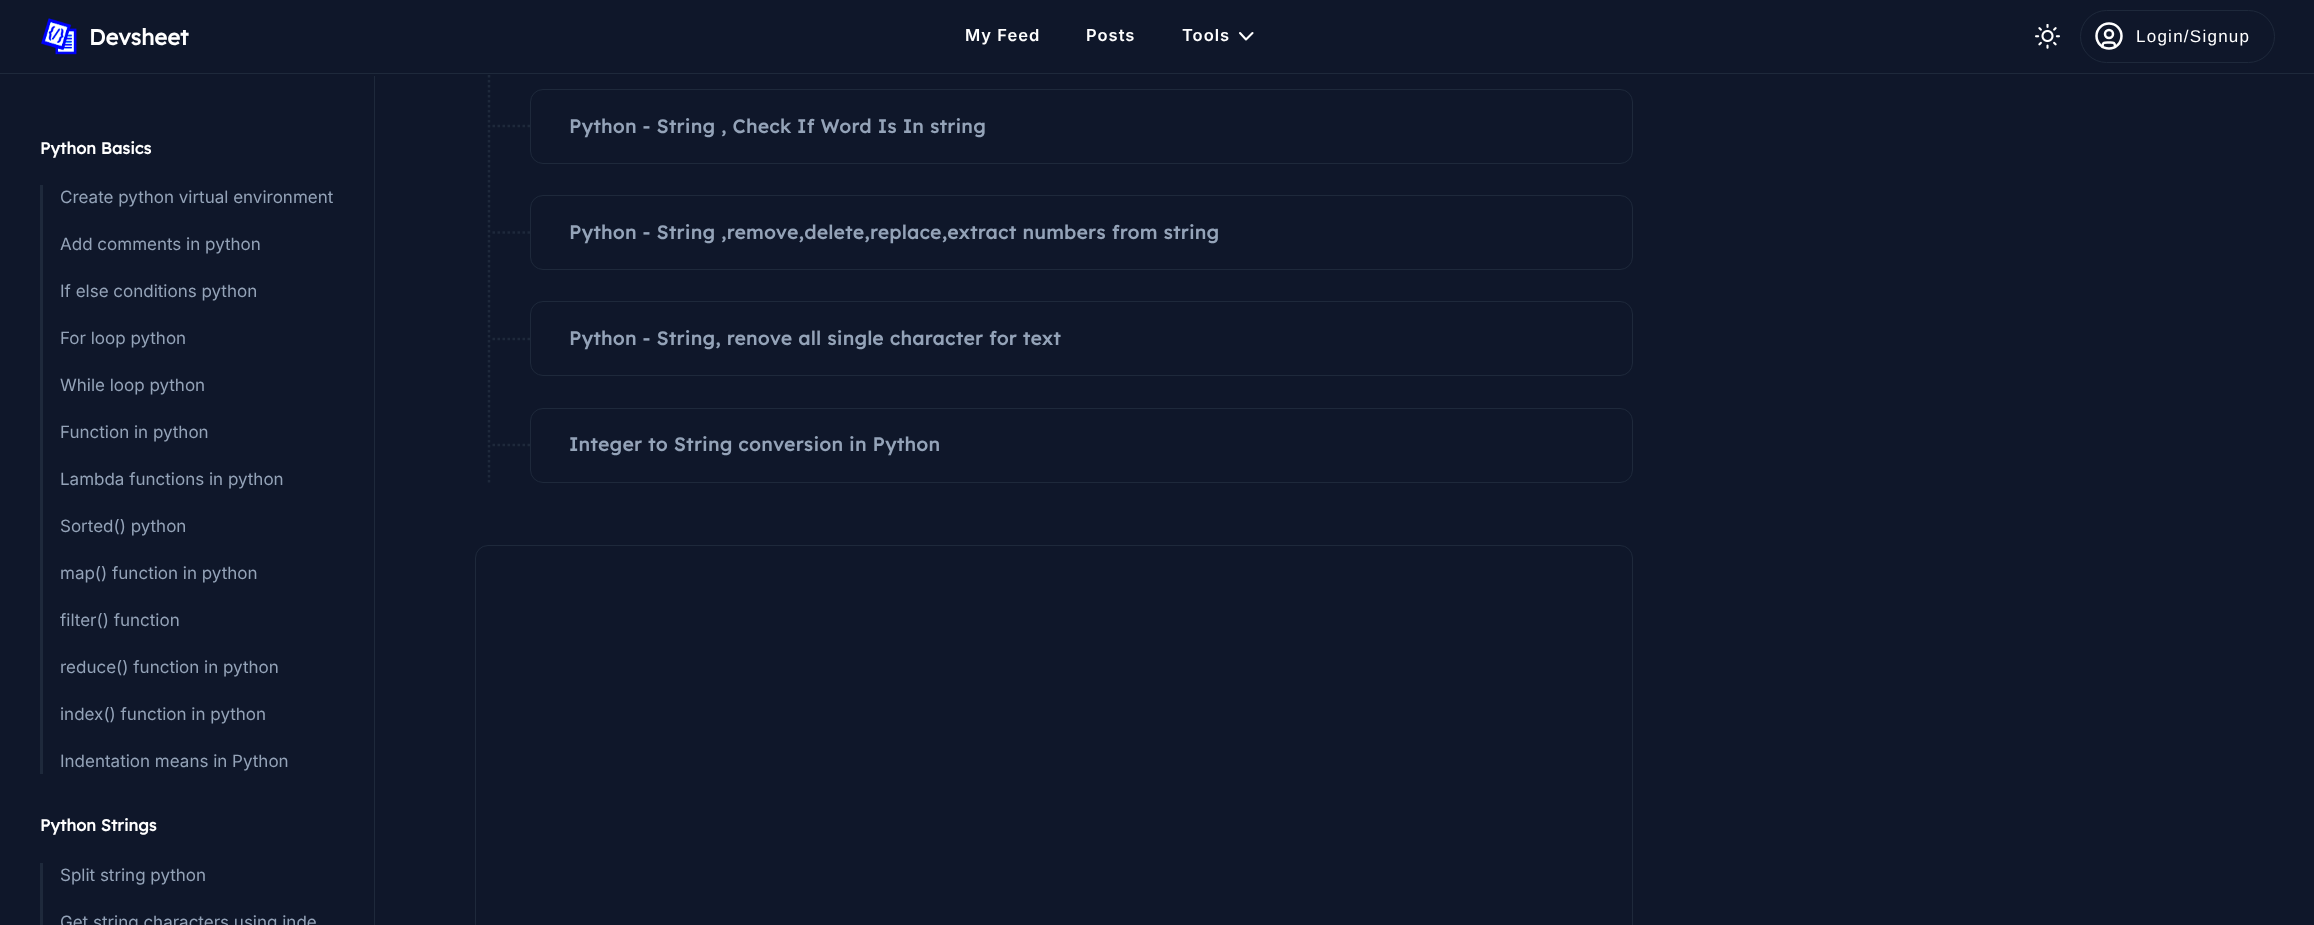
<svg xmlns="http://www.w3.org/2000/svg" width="2314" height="925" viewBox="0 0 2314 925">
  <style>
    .t1 { font: bold 22px Lexend; fill: #fff; }
    .t2 { font: 600 16.5px Inter; letter-spacing: 1px; fill: #fff; }
    .t3 { font: 17px Liberation Sans; letter-spacing: 1.25px; fill: #fff; }
    .t4 { font: bold 16.25px Lexend; letter-spacing: 0.1px; fill: #fff; }
    .t5 { font: 17px Inter; fill: #94a3b8; }
    .t6 { font: bold 18.75px Lexend; letter-spacing: 0.62px; fill: #94a3b8; }
  </style>
  <rect width="100%" height="100%" fill="#0f172a"/>
  <path d="M489-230V482.5" fill="none" stroke="#1e293b" stroke-width="2.5" stroke-dasharray="2.5 2.5"/>
  <rect x="487" y="0" width="4" height="73" fill="#0f172a"/>
  <rect x="0" y="73" width="2314" height="1" fill="#1e293b"/>
  <image x="41" y="18" width="36" height="37" href="images/1.png"/>
  <text x="89" y="45" class="t1">Devsheet</text>
  <text x="965" y="41" class="t2">My Feed</text>
  <text x="1086" y="41" class="t2">Posts</text>
  <text x="1182" y="41" class="t2">Tools</text>
  <path d="M1240 33L1246 39.5L1252.5 33" fill="none" stroke="#fff" stroke-width="2.1" stroke-linecap="round" stroke-linejoin="round"/>
  <image x="2035" y="24" width="25" height="25" href="images/2.png"/>
  <rect x="2080.5" y="10.5" width="194" height="52" rx="26" fill="none" stroke="#1e293b"/>
  <circle cx="2109" cy="36" r="12.5" fill="none" stroke="#fff" stroke-width="2.5"/>
  <circle cx="2109" cy="34" r="4" fill="none" stroke="#fff" stroke-width="2.5"/>
  <path d="M2102.5 47C2102.5 42 2104 42.5 2109 42.5C2113.5 42.5 2115 42 2115 47" fill="none" stroke="#fff" stroke-width="2.5" stroke-linecap="round" stroke-linejoin="round"/>
  <text x="2136" y="42" class="t3">Login/Signup</text>
  <rect x="374" y="76" width="1" height="849" fill="#1e293b"/>
  <text x="40" y="154" class="t4">Python Basics</text>
  <rect x="40" y="185" width="3" height="589" fill="#1e293b"/>
  <text x="60" y="203" class="t5">Create python virtual environment</text>
  <text x="60" y="250" class="t5">Add comments in python</text>
  <text x="60" y="297" class="t5">If else conditions python</text>
  <text x="60" y="344" class="t5">For loop python</text>
  <text x="60" y="391" class="t5">While loop python</text>
  <text x="60" y="438" class="t5">Function in python</text>
  <text x="60" y="485" class="t5">Lambda functions in python</text>
  <text x="60" y="532" class="t5">Sorted() python</text>
  <text x="60" y="579" class="t5">map() function in python</text>
  <text x="60" y="626" class="t5">filter() function</text>
  <text x="60" y="673" class="t5">reduce() function in python</text>
  <text x="60" y="720" class="t5">index() function in python</text>
  <text x="60" y="767" class="t5">Indentation means in Python</text>
  <text x="40" y="831" class="t4">Python Strings</text>
  <rect x="40" y="863" width="3" height="62" fill="#1e293b"/>
  <text x="60" y="881" class="t5">Split string python</text>
  <text x="60" y="928" class="t5">Get string characters using inde</text>
  <path d="M492.5 126H530" fill="none" stroke="#1e293b" stroke-width="2.5" stroke-dasharray="2.5 2.5"/>
  <rect x="530.5" y="89.5" width="1102" height="74" rx="12.5" fill="none" stroke="#1e293b"/>
  <text x="569" y="133" class="t6">Python - String , Check If Word Is In string</text>
  <path d="M492.5 232.5H530" fill="none" stroke="#1e293b" stroke-width="2.5" stroke-dasharray="2.5 2.5"/>
  <rect x="530.5" y="195.5" width="1102" height="74" rx="12.5" fill="none" stroke="#1e293b"/>
  <text x="569" y="239" class="t6">Python - String ,remove,delete,replace,extract numbers from string</text>
  <path d="M492.5 339H530" fill="none" stroke="#1e293b" stroke-width="2.5" stroke-dasharray="2.5 2.5"/>
  <rect x="530.5" y="301.5" width="1102" height="74" rx="12.5" fill="none" stroke="#1e293b"/>
  <text x="569" y="345" class="t6">Python - String, renove all single character for text</text>
  <path d="M492.5 445H530" fill="none" stroke="#1e293b" stroke-width="2.5" stroke-dasharray="2.5 2.5"/>
  <rect x="530.5" y="408.5" width="1102" height="74" rx="12.5" fill="none" stroke="#1e293b"/>
  <text x="569" y="451" class="t6">Integer to String conversion in Python</text>
  <rect x="475.5" y="545.5" width="1157" height="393" rx="12.5" fill="none" stroke="#1e293b"/>
</svg>
